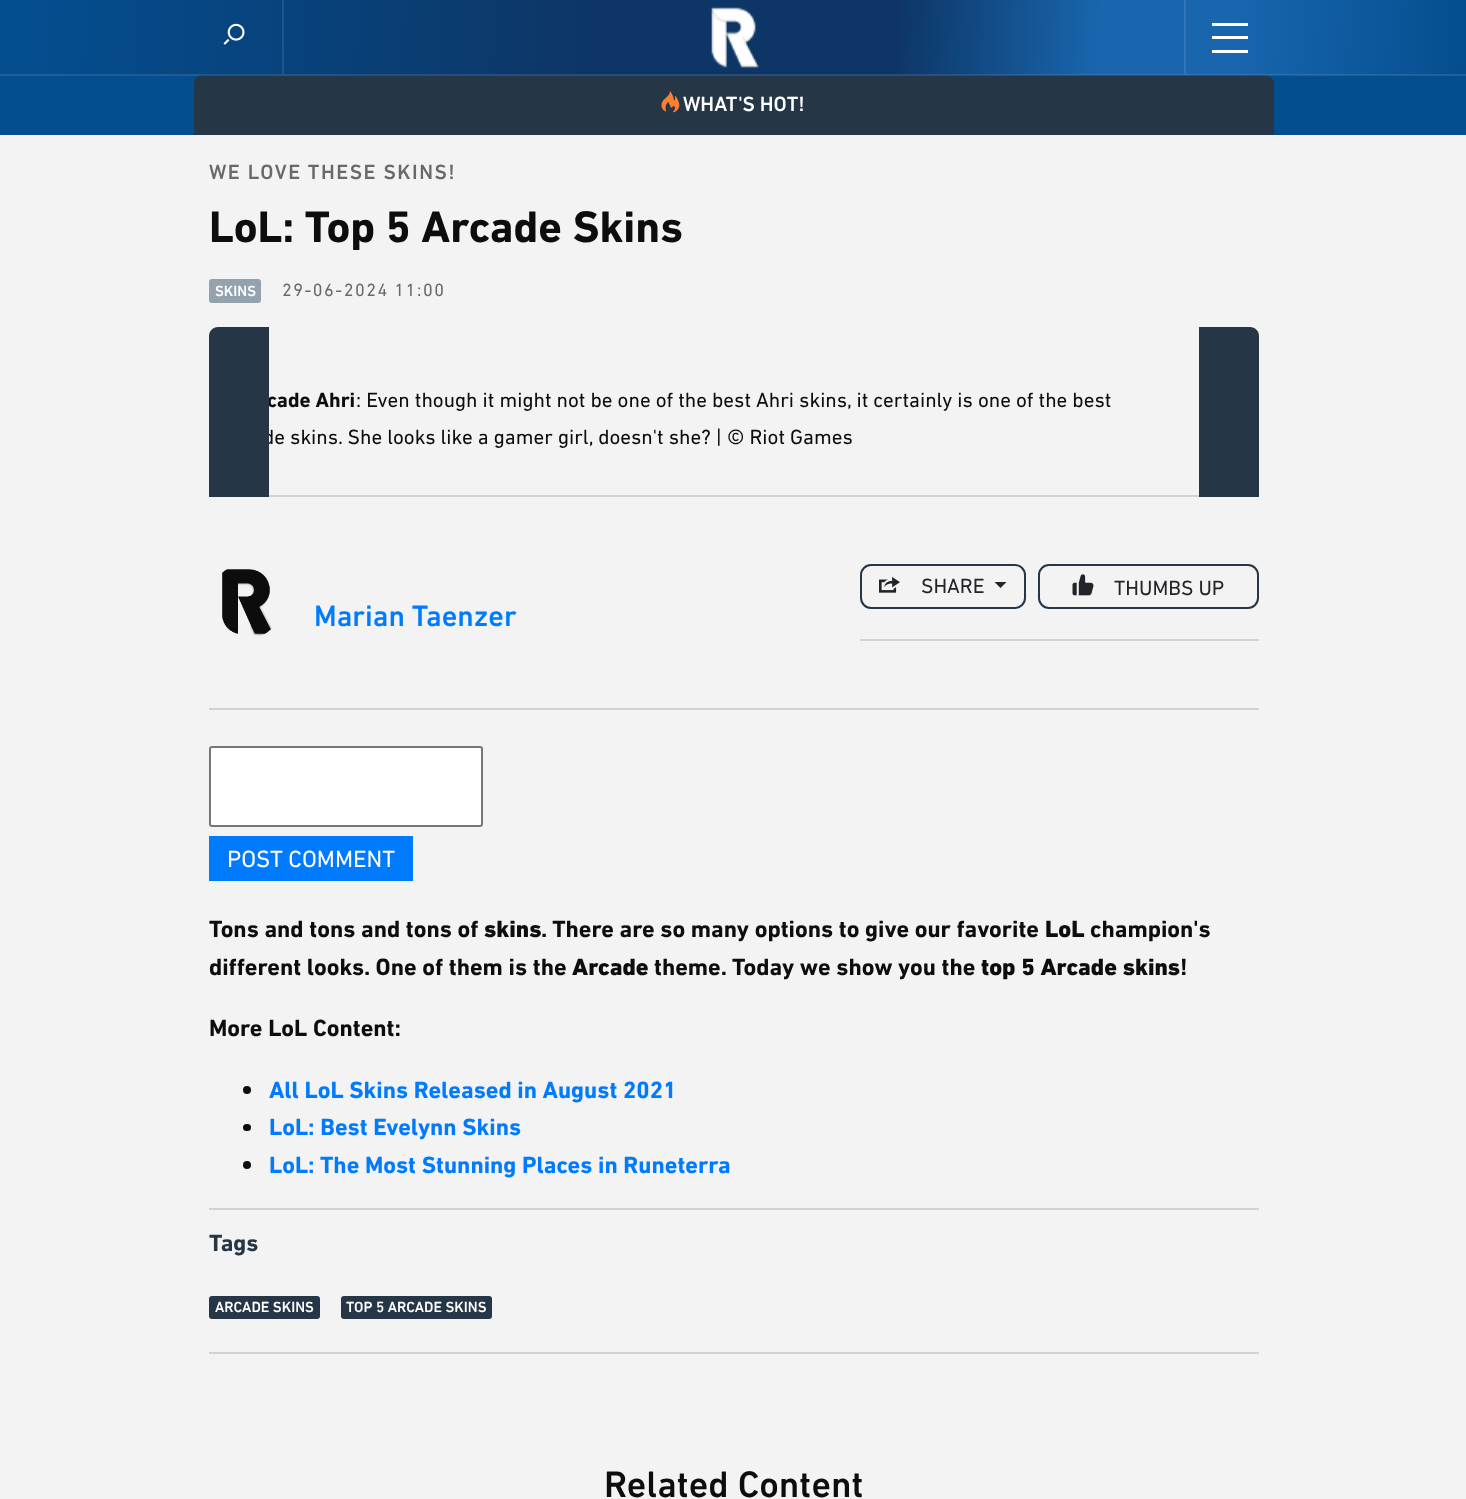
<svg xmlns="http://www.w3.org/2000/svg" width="1466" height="1499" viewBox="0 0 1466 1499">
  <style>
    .t1 { font: 500 21px DIN Next; fill: #fff; }
    .t2 { font: 500 21px DIN Next; letter-spacing: 1.5px; fill: #696969; }
    .t3 { font: bold 45px DIN Next; fill: #0d0d0d; }
    .t4 { font: 500 15px DIN Next; fill: #fff; }
    .t5 { font: 18px DIN Next; letter-spacing: 1.5px; fill: #696969; }
    .t6 { font: bold 21px DIN Next; fill: #0d0d0d; }
    .t7 { font: 21px DIN Next; fill: #0d0d0d; }
    .t8 { font: 21px DIN Next; fill: #212529; }
    .t9 { font: 500 30px DIN Next; fill: #007bff; }
    .t10 { font: 24px DIN Next; fill: #fff; }
    .t11 { font: bold 24px DIN Next; fill: #0d0d0d; }
    .t12 { font: 900 24px DIN Next; fill: #0d0d0d; }
    .t13 { font: bold 24px DIN Next; fill: #007bff; }
    .t14 { font: bold 24px DIN Next; fill: #253746; }
    .t15 { font: 500 37.5px DIN Next; fill: #0d0d0d; }
  </style>
  <defs>
    <linearGradient id="g1" gradientUnits="userSpaceOnUse" x1="0.1" y1="-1.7" x2="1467" y2="75"><stop offset="0.03" stop-color="#044d8e"/><stop offset="0.4" stop-color="#0d3666"/><stop offset="0.61" stop-color="#0d3666"/><stop offset="0.75" stop-color="#1966af"/><stop offset="0.84" stop-color="#1966af"/><stop offset="1" stop-color="#044d8e"/></linearGradient>
    <linearGradient id="g2" gradientUnits="userSpaceOnUse" x1="0.1" y1="72" x2="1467" y2="149"><stop offset="0.03" stop-color="#044d8e"/><stop offset="0.4" stop-color="#0d3666"/><stop offset="0.61" stop-color="#0d3666"/><stop offset="0.75" stop-color="#1966af"/><stop offset="0.84" stop-color="#1966af"/><stop offset="1" stop-color="#044d8e"/></linearGradient>
  </defs>
  <rect width="100%" height="100%" fill="#f3f3f3"/>
  <rect x="0" y="75" width="1466" height="60" fill="#044d8e"/>
  <rect x="0" y="0" width="1466" height="74" fill="url(#g1)"/>
  <rect x="0" y="74" width="1466" height="1" fill="url(#g2)"/>
  <path d="M203 75H1265C1270 75 1274 79 1274 84V135H194V84C194 79 198 75 203 75Z" fill="#253746"/>
  <rect x="0" y="74" width="1466" height="2" fill="#ffffff1a"/>
  <rect x="282" y="0" width="2" height="74" fill="#215689"/>
  <image x="223" y="23" width="22" height="22" href="images/1.png"/>
  <image x="711" y="7" width="49" height="62" href="images/2.png"/>
  <rect x="1184" y="0" width="2" height="74" fill="#3075b7"/>
  <rect x="1212" y="23" width="36" height="3" fill="#fff"/>
  <rect x="1212" y="36" width="36" height="3" fill="#fff"/>
  <rect x="1212" y="50" width="36" height="3" fill="#fff"/>
  <image x="661" y="91" width="19" height="22" href="images/3.png"/>
  <text x="683" y="111" class="t1">WHAT'S HOT!</text>
  <text x="209" y="179" class="t2">WE LOVE THESE SKINS!</text>
  <text x="209" y="242" class="t3">LoL: Top 5 Arcade Skins</text>
  <rect x="209" y="279" width="52" height="24" rx="3" fill="#93a2ad"/>
  <text x="215" y="296" class="t4">SKINS</text>
  <text x="282" y="296" class="t5">29-06-2024 11:00</text>
  <text x="267" y="407" class="t6">cade Ahri</text>
  <text x="263" y="444" class="t7">de skins. She looks like a gamer girl, doesn't she? | © Riot Games</text>
  <path d="M218 327H269V497H209V336C209 331 213 327 218 327Z" fill="#253746"/>
  <rect x="269" y="495" width="930" height="2" fill="#d2d3d6"/>
  <text x="356" y="407" class="t7">: Even though it might not be one of the best Ahri skins, it certainly is one of the best</text>
  <path d="M1199 327H1250C1255 327 1259 331 1259 336V497H1199Z" fill="#253746"/>
  <rect x="209" y="708" width="1050" height="2" fill="#d2d3d6"/>
  <rect x="860" y="639" width="399" height="2" fill="#d2d3d6"/>
  <rect x="861" y="565" width="164" height="43" rx="10" fill="none" stroke="#253746" stroke-width="2"/>
  <image x="879" y="577" width="21" height="16" href="images/4.png"/>
  <text x="921" y="593" class="t8">SHARE</text>
  <path d="M994.5 582H1006.5L1000.5 588Z" fill="#212529"/>
  <rect x="1039" y="565" width="219" height="43" rx="10" fill="none" stroke="#253746" stroke-width="2"/>
  <image x="1072" y="574" width="22" height="22" href="images/5.png"/>
  <text x="1114" y="595" class="t8">THUMBS UP</text>
  <image x="222" y="569" width="50" height="67" href="images/6.png"/>
  <text x="314" y="626" class="t9">Marian Taenzer</text>
  <rect x="210" y="747" width="272" height="79" rx="2" fill="#fff" stroke="#767676" stroke-width="2"/>
  <rect x="209" y="836" width="204" height="45" fill="#007bff"/>
  <text x="227" y="867" class="t10">POST COMMENT</text>
  <rect x="209" y="1208" width="1050" height="2" fill="#d2d3d6"/>
  <text x="209" y="937" class="t11">Tons and tons and tons of</text>
  <text x="484" y="937" class="t12">skins</text>
  <text x="541" y="937" class="t11">. There are so many options to give our favorite</text>
  <text x="1045" y="937" class="t12">LoL</text>
  <text x="1090" y="937" class="t11">champion's</text>
  <text x="209" y="975" class="t11">different looks. One of them is the</text>
  <text x="572" y="975" class="t12">Arcade</text>
  <text x="654" y="975" class="t11">theme. Today we show you the</text>
  <text x="981" y="975" class="t12">top 5 Arcade skins</text>
  <text x="1180" y="975" class="t11">!</text>
  <text x="209" y="1036" class="t11">More LoL Content:</text>
  <circle cx="247" cy="1090" r="4" fill="#0d0d0d"/>
  <text x="269" y="1098" class="t13">All LoL Skins Released in August 2021</text>
  <rect x="243" y="1124" width="8" height="7" rx="3.5" fill="#0d0d0d"/>
  <text x="269" y="1135" class="t13">LoL: Best Evelynn Skins</text>
  <circle cx="247" cy="1165" r="4" fill="#0d0d0d"/>
  <text x="269" y="1173" class="t13">LoL: The Most Stunning Places in Runeterra</text>
  <rect x="209" y="1352" width="1050" height="2" fill="#d2d3d6"/>
  <text x="209" y="1251" class="t14">Tags</text>
  <rect x="209" y="1296" width="111" height="23" rx="3" fill="#253746"/>
  <text x="215" y="1312" class="t4">ARCADE SKINS</text>
  <rect x="341" y="1296" width="151" height="23" rx="3" fill="#253746"/>
  <text x="346" y="1312" class="t4">TOP 5 ARCADE SKINS</text>
  <text x="604" y="1497" class="t15">Related Content</text>
</svg>
